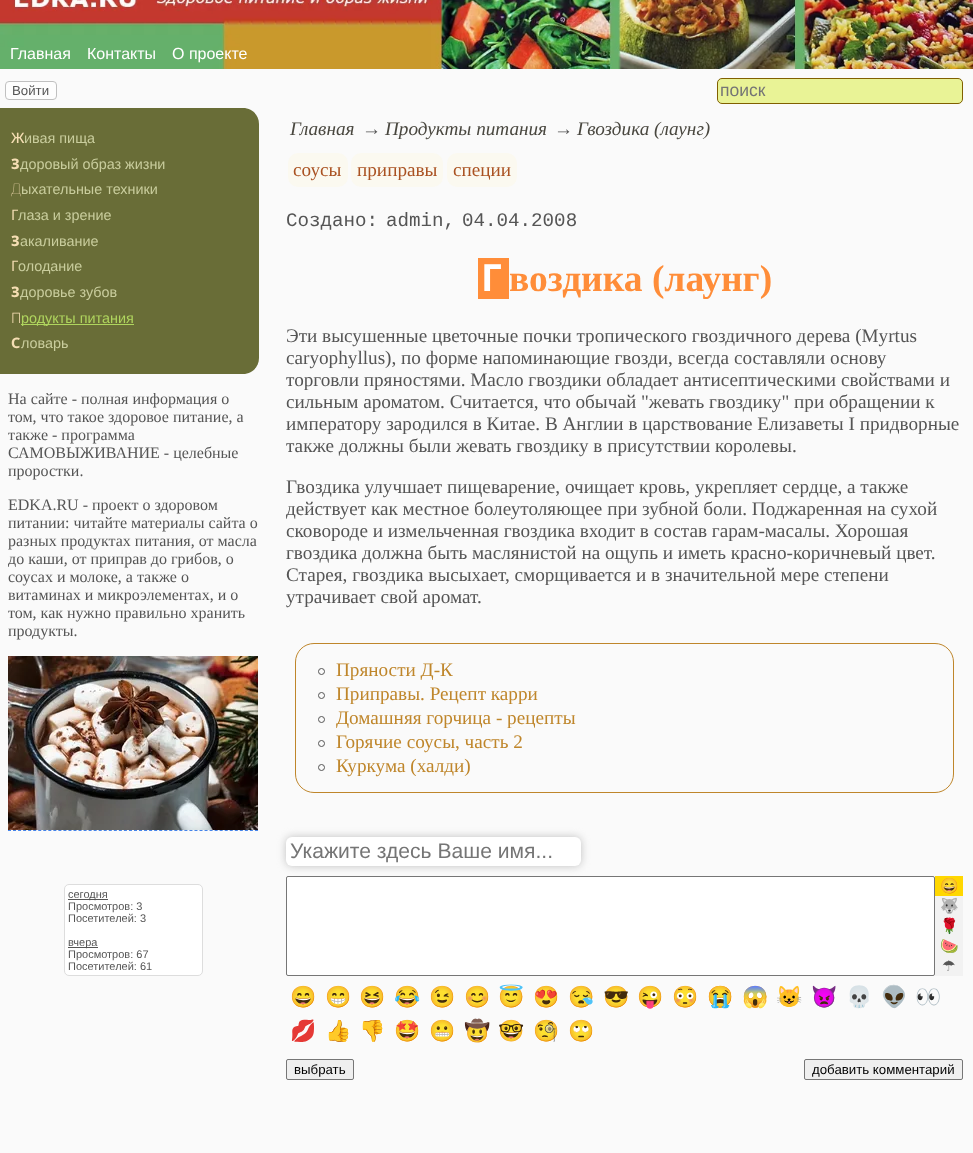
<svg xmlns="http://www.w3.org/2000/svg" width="973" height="1153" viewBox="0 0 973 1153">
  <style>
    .t1 { font: 16px Liberation Sans; fill: #fff; }
    .t2 { font: 13.25px Liberation Sans; fill: #555; }
    .t3 { font: 17.5px Liberation Sans; fill: #757575; }
    .t4 { font: 500 14.4px Noto Sans; fill: #f5deb3; }
    .t5 { font: 14.4px Liberation Sans; fill: #c9cd9d; }
    .t6 { font: 800 14.4px Noto Sans; fill: #f5deb3; }
    .t7 { font: 100 14.4px Noto Sans; fill: #f5deb3; }
    .t8 { font: 14.4px Noto Sans; fill: #f5deb3; }
    .t9 { font: 300 14.4px Noto Sans; fill: #f5deb3; }
    .t10 { font: 14.4px Liberation Sans; fill: #afd55e; }
    .t11 { font: bold 14.4px Noto Sans; fill: #f5deb3; }
    .t12 { font: 16px Liberation Serif; fill: #555; }
    .t13 { font: 11px Liberation Sans; fill: #555; }
    .t14 { font: italic 19.2px Liberation Serif; fill: #49473f; }
    .t15 { font: italic 19.2px Liberation Serif; fill: #555; }
    .t16 { font: 19.2px Liberation Serif; fill: #aa5222; }
    .t17 { font: 19.2px Liberation Mono; fill: #555; }
    .t18 { font: bold 37.5px Noto Sans; fill: #fff; }
    .t19 { font: bold 37.5px Liberation Serif; fill: #ff8d39; }
    .t20 { font: 19.2px Liberation Serif; fill: #555; }
    .t21 { font: 19.2px Liberation Serif; fill: #bf862b; }
    .t22 { font: 21.1px Liberation Sans; fill: #757575; }
    .t23 { font: 15px Noto Color Emoji; fill: #555; }
    .t24 { font: 15px DejaVu Sans; fill: #555; }
    .t25 { font: 21.1px Noto Color Emoji; fill: #555; }
    .t26 { font: 13.25px Liberation Sans; fill: #000; }
  </style>
  <rect width="100%" height="100%" fill="#fafafa"/>
  <image x="0" y="0" width="973" height="69" href="images/1.png"/>
  <text x="10" y="59" class="t1">Главная</text>
  <text x="87" y="59" class="t1">Контакты</text>
  <text x="172" y="59" class="t1">О проекте</text>
  <rect x="5.5" y="81.5" width="51" height="18" rx="3.5" fill="#fdfdfd" stroke="#c0c0c0"/>
  <text x="12" y="95" class="t2">Войти</text>
  <rect x="717.5" y="78.5" width="245" height="25" rx="4.5" fill="#e9f396" stroke="#806000"/>
  <text x="720" y="96" class="t3">поиск</text>
  <path d="M0 108H243C252 108 259 115 259 124V358C259 367 252 374 243 374H0Z" fill="#696d37"/>
  <text x="11" y="143" class="t4">Ж</text>
  <text x="24" y="143" class="t5">ивая пища</text>
  <text x="11" y="169" class="t6">З</text>
  <text x="20" y="169" class="t5">доровый образ жизни</text>
  <text x="11" y="194" class="t7">Д</text>
  <text x="21" y="194" class="t5">ыхательные техники</text>
  <text x="11" y="220" class="t8">Г</text>
  <text x="18" y="220" class="t5">лаза и зрение</text>
  <text x="11" y="246" class="t6">З</text>
  <text x="20" y="246" class="t5">акаливание</text>
  <text x="11" y="271" class="t8">Г</text>
  <text x="18" y="271" class="t5">олодание</text>
  <text x="11" y="297" class="t6">З</text>
  <text x="20" y="297" class="t5">доровье зубов</text>
  <text x="11" y="323" class="t9">П</text>
  <rect x="21" y="324" width="113" height="1" fill="#afd55e"/>
  <text x="21" y="323" class="t10">родукты питания</text>
  <text x="11" y="348" class="t11">С</text>
  <text x="21" y="348" class="t5">ловарь</text>
  <text x="8" y="404" class="t12">На сайте - полная информация о</text>
  <text x="8" y="422" class="t12">том, что такое здоровое питание, а</text>
  <text x="8" y="440" class="t12">также - программа</text>
  <text x="8" y="458" class="t12">САМОВЫЖИВАНИЕ - целебные</text>
  <text x="8" y="476" class="t12">проростки.</text>
  <text x="8" y="510" class="t12">EDKA.RU - проект о здоровом</text>
  <text x="8" y="528" class="t12">питании: читайте материалы сайта о</text>
  <text x="8" y="546" class="t12">разных продуктах питания, от масла</text>
  <text x="8" y="564" class="t12">до каши, от приправ до грибов, о</text>
  <text x="8" y="582" class="t12">соусах и молоке, а также о</text>
  <text x="8" y="600" class="t12">витаминах и микроэлементах, и о</text>
  <text x="8" y="618" class="t12">том, как нужно правильно хранить</text>
  <text x="8" y="636" class="t12">продукты.</text>
  <image x="8" y="656" width="250" height="174" href="images/2.png"/>
  <path d="M8 830.5H258" fill="none" stroke="#4483e9" stroke-dasharray="3 2.04"/>
  <rect x="64.5" y="884.5" width="138" height="91" rx="4.5" fill="#fff" stroke="#ddd"/>
  <rect x="68" y="899" width="40" height="1" fill="#555"/>
  <text x="68" y="898" class="t13">сегодня</text>
  <text x="68" y="910" class="t13">Просмотров: 3</text>
  <text x="68" y="922" class="t13">Посетителей: 3</text>
  <rect x="68" y="947" width="30" height="1" fill="#555"/>
  <text x="68" y="946" class="t13">вчера</text>
  <text x="68" y="958" class="t13">Просмотров: 67</text>
  <text x="68" y="970" class="t13">Посетителей: 61</text>
  <text x="290" y="135" class="t14">Главная</text>
  <text x="362" y="135" class="t15">→</text>
  <text x="385" y="135" class="t14">Продукты питания</text>
  <text x="554" y="135" class="t15">→</text>
  <text x="577" y="135" class="t14">Гвоздика (лаунг)</text>
  <rect x="288" y="153" width="60" height="34" rx="10" fill="#fbf9f0"/>
  <text x="293" y="176" class="t16">соусы</text>
  <rect x="351" y="153" width="92" height="34" rx="10" fill="#fbf9f0"/>
  <text x="357" y="176" class="t16">приправы</text>
  <rect x="447" y="153" width="70" height="34" rx="10" fill="#fbf9f0"/>
  <text x="453" y="176" class="t16">специи</text>
  <text x="286" y="226" class="t17">Создано:</text>
  <text x="386" y="226" class="t17">admin,</text>
  <text x="462" y="226" class="t17">04.04.2008</text>
  <rect x="478" y="258" width="31" height="41" fill="#ff8d39"/>
  <text x="481" y="291" class="t18">Г</text>
  <text x="509" y="291" class="t19">воздика (лаунг)</text>
  <text x="286" y="342" class="t20">Эти высушенные цветочные почки тропического гвоздичного дерева (Myrtus</text>
  <text x="286" y="364" class="t20">caryophyllus), по форме напоминающие гвозди, всегда составляли основу</text>
  <text x="286" y="386" class="t20">торговли пряностями. Масло гвоздики обладает антисептическими свойствами и</text>
  <text x="286" y="408" class="t20">сильным ароматом. Считается, что обычай "жевать гвоздику" при обращении к</text>
  <text x="286" y="430" class="t20">императору зародился в Китае. В Англии в царствование Елизаветы I придворные</text>
  <text x="286" y="452" class="t20">также должны были жевать гвоздику в присутствии королевы.</text>
  <text x="286" y="493" class="t20">Гвоздика улучшает пищеварение, очищает кровь, укрепляет сердце, а также</text>
  <text x="286" y="515" class="t20">действует как местное болеутоляющее при зубной боли. Поджаренная на сухой</text>
  <text x="286" y="537" class="t20">сковороде и измельченная гвоздика входит в состав гарам-масалы. Хорошая</text>
  <text x="286" y="559" class="t20">гвоздика должна быть маслянистой на ощупь и иметь красно-коричневый цвет.</text>
  <text x="286" y="581" class="t20">Старея, гвоздика высыхает, сморщивается и в значительной мере степени</text>
  <text x="286" y="603" class="t20">утрачивает свой аромат.</text>
  <rect x="295.5" y="643.5" width="658" height="149" rx="18.5" fill="none" stroke="#bf862b"/>
  <circle cx="321.5" cy="671.5" r="3" fill="none" stroke="#555"/>
  <text x="336" y="676" class="t21">Пряности Д-К</text>
  <circle cx="321.5" cy="695.5" r="3" fill="none" stroke="#555"/>
  <text x="336" y="700" class="t21">Приправы. Рецепт карри</text>
  <circle cx="321.5" cy="719.5" r="3" fill="none" stroke="#555"/>
  <text x="336" y="724" class="t21">Домашняя горчица - рецепты</text>
  <circle cx="321.5" cy="743.5" r="3" fill="none" stroke="#555"/>
  <text x="336" y="748" class="t21">Горячие соусы, часть 2</text>
  <circle cx="321.5" cy="767.5" r="3" fill="none" stroke="#555"/>
  <text x="336" y="772" class="t21">Куркума (халди)</text>
  <rect x="286" y="837" width="295" height="29" rx="6" fill="#c0c0c0" filter="blur(4px)"/>
  <rect x="286" y="837" width="295" height="29" rx="6" fill="#fff"/>
  <text x="290" y="858" class="t22">Укажите здесь Ваше имя...</text>
  <rect x="286.5" y="876.5" width="648" height="99" rx="1.5" fill="#fff" stroke="#767676"/>
  <rect x="935" y="876" width="28" height="20" fill="#ffd700"/>
  <text x="940" y="891" class="t23">😄</text>
  <rect x="935" y="896" width="28" height="80" fill="#f2f2f2"/>
  <text x="940" y="911" class="t23">🐺</text>
  <text x="940" y="931" class="t23">🌹</text>
  <text x="940" y="951" class="t23">🍉</text>
  <text x="942" y="971" class="t24">☂</text>
  <text x="290" y="1004" class="t25">😄</text>
  <text x="325" y="1004" class="t25">😁</text>
  <text x="359" y="1004" class="t25">😆</text>
  <text x="394" y="1004" class="t25">😂</text>
  <text x="429" y="1004" class="t25">😉</text>
  <text x="464" y="1004" class="t25">😊</text>
  <text x="498" y="1004" class="t25">😇</text>
  <text x="533" y="1004" class="t25">😍</text>
  <text x="568" y="1004" class="t25">😪</text>
  <text x="603" y="1004" class="t25">😎</text>
  <text x="637" y="1004" class="t25">😜</text>
  <text x="672" y="1004" class="t25">😳</text>
  <text x="707" y="1004" class="t25">😭</text>
  <text x="742" y="1004" class="t25">😱</text>
  <text x="776" y="1004" class="t25">😺</text>
  <text x="811" y="1004" class="t25">👿</text>
  <text x="846" y="1004" class="t25">💀</text>
  <text x="881" y="1004" class="t25">👽</text>
  <text x="915" y="1004" class="t25">👀</text>
  <text x="290" y="1038" class="t25">💋</text>
  <text x="325" y="1038" class="t25">👍</text>
  <text x="359" y="1038" class="t25">👎</text>
  <text x="394" y="1038" class="t25">🤩</text>
  <text x="429" y="1038" class="t25">😬</text>
  <text x="464" y="1038" class="t25">🤠</text>
  <text x="498" y="1038" class="t25">🤓</text>
  <text x="533" y="1038" class="t25">🧐</text>
  <text x="568" y="1038" class="t25">🙄</text>
  <rect x="286.5" y="1059.5" width="67" height="20" rx="1.5" fill="#efefef" stroke="#767676"/>
  <text x="294" y="1074" class="t26">выбрать</text>
  <rect x="804.5" y="1059.5" width="158" height="20" rx="1.5" fill="#efefef" stroke="#767676"/>
  <text x="812" y="1074" class="t26">добавить комментарий</text>
</svg>
